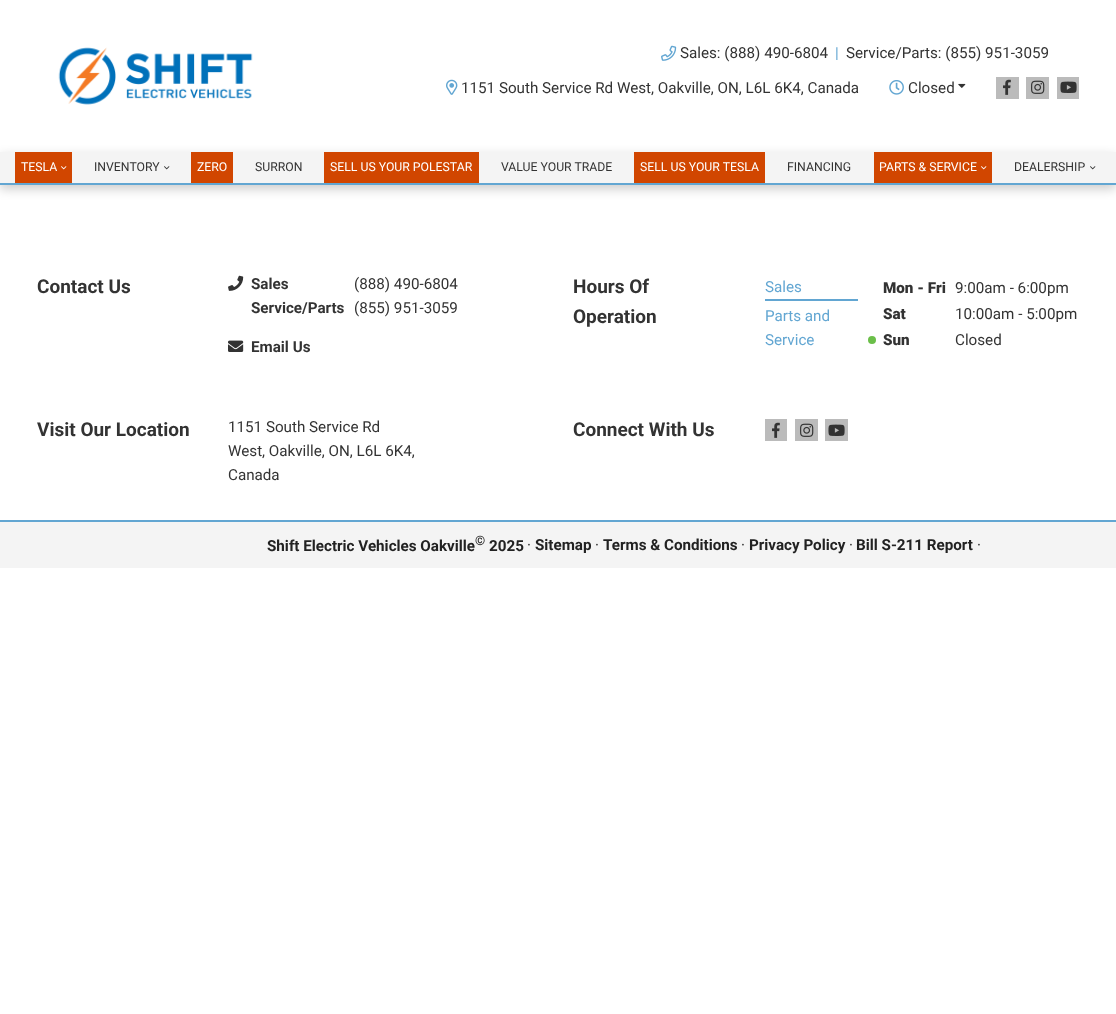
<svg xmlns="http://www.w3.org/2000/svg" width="1116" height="1014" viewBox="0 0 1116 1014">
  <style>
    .t1 { font: 15.2px Roboto; fill: #333; }
    .t2 { font: 15.2px Roboto; fill: #62a6d2; }
    .t3 { font: 12.25px Roboto; fill: #fff; }
    .t4 { font: 12.25px Roboto; fill: #333; }
    .t5 { font: bold 19px Roboto; fill: #333; }
    .t6 { font: bold 15.2px Roboto; fill: #333; }
    .t7 { font: 900 15.2px Roboto; fill: #333; }
    .t8 { font: bold 15.2px Roboto; fill: #222; }
    .t9 { font: bold 13px Roboto; fill: #222; }
  </style>
  <rect width="100%" height="100%" fill="#fff"/>
  <image x="58" y="47" width="195" height="58" href="images/1.png"/>
  <image x="661" y="45" width="16" height="16" href="images/2.png"/>
  <text x="680" y="58" class="t1">Sales: (888) 490-6804</text>
  <text x="835" y="58" class="t2">|</text>
  <text x="846" y="58" class="t1">Service/Parts: (855) 951-3059</text>
  <image x="446" y="79" width="12" height="16" href="images/3.png"/>
  <text x="461" y="93" class="t1">1151 South Service Rd West, Oakville, ON, L6L 6K4, Canada</text>
  <image x="889" y="80" width="15" height="15" href="images/4.png"/>
  <text x="908" y="93" class="t1">Closed</text>
  <image x="958" y="83" width="8" height="5" href="images/5.png"/>
  <rect x="996" y="77" width="23" height="22" fill="#bbb"/>
  <image x="1003" y="79" width="8" height="16" href="images/6.png"/>
  <rect x="1026" y="77" width="23" height="22" fill="#bbb"/>
  <image x="1031" y="80" width="14" height="14" href="images/7.png"/>
  <rect x="1057" y="77" width="22" height="22" fill="#bbb"/>
  <image x="1060" y="81" width="17" height="12" href="images/8.png"/>
  <rect x="0" y="156" width="1116" height="33" fill="#00000033" filter="blur(5.5px)"/>
  <rect x="0" y="152" width="1116" height="31" fill="#f4f4f4"/>
  <rect x="0" y="183" width="1116" height="2" fill="#62a6d2"/>
  <rect x="15" y="152" width="57" height="31" fill="#d14600"/>
  <text x="21" y="171" class="t3">TESLA</text>
  <image x="61" y="166" width="6" height="4" href="images/9.png"/>
  <text x="94" y="171" class="t4">INVENTORY</text>
  <image x="164" y="166" width="6" height="4" href="images/10.png"/>
  <rect x="191" y="152" width="42" height="31" fill="#d14600"/>
  <text x="197" y="171" class="t3">ZERO</text>
  <text x="255" y="171" class="t4">SURRON</text>
  <rect x="324" y="152" width="155" height="31" fill="#d14600"/>
  <text x="330" y="171" class="t3">SELL US YOUR POLESTAR</text>
  <text x="501" y="171" class="t4">VALUE YOUR TRADE</text>
  <rect x="634" y="152" width="131" height="31" fill="#d14600"/>
  <text x="640" y="171" class="t3">SELL US YOUR TESLA</text>
  <text x="787" y="171" class="t4">FINANCING</text>
  <rect x="874" y="152" width="118" height="31" fill="#d14600"/>
  <text x="879" y="171" class="t3">PARTS &amp; SERVICE</text>
  <image x="981" y="166" width="6" height="4" href="images/9.png"/>
  <text x="1014" y="171" class="t4">DEALERSHIP</text>
  <image x="1090" y="166" width="6" height="4" href="images/10.png"/>
  <rect x="0" y="520" width="1116" height="2" fill="#62a6d2"/>
  <text x="37" y="293" class="t5">Contact Us</text>
  <image x="228" y="275" width="16" height="16" href="images/11.png"/>
  <text x="251" y="289" class="t6">Sales</text>
  <text x="354" y="289" class="t1">(888) 490-6804</text>
  <text x="251" y="313" class="t6">Service/Parts</text>
  <text x="354" y="313" class="t1">(855) 951-3059</text>
  <image x="228" y="340" width="16" height="12" href="images/12.png"/>
  <text x="251" y="352" class="t6">Email Us</text>
  <text x="573" y="293" class="t5">Hours Of</text>
  <text x="573" y="323" class="t5">Operation</text>
  <rect x="765" y="299" width="93" height="2" fill="#62a6d2"/>
  <text x="765" y="292" class="t2">Sales</text>
  <text x="765" y="321" class="t2">Parts and</text>
  <text x="765" y="345" class="t2">Service</text>
  <text x="883" y="293" class="t7">Mon - Fri</text>
  <text x="955" y="293" class="t1">9:00am - 6:00pm</text>
  <text x="883" y="319" class="t7">Sat</text>
  <text x="955" y="319" class="t1">10:00am - 5:00pm</text>
  <circle cx="872" cy="340" r="4" fill="#6bbf49"/>
  <text x="883" y="345" class="t7">Sun</text>
  <text x="955" y="345" class="t1">Closed</text>
  <text x="37" y="436" class="t5">Visit Our Location</text>
  <text x="228" y="432" class="t1">1151 South Service Rd</text>
  <text x="228" y="456" class="t1">West, Oakville, ON, L6L 6K4,</text>
  <text x="228" y="480" class="t1">Canada</text>
  <text x="573" y="436" class="t5">Connect With Us</text>
  <rect x="765" y="419" width="22" height="22" fill="#bbb"/>
  <image x="772" y="422" width="8" height="16" href="images/6.png"/>
  <rect x="795" y="419" width="23" height="22" fill="#bbb"/>
  <image x="800" y="423" width="14" height="14" href="images/7.png"/>
  <rect x="825" y="419" width="23" height="22" fill="#bbb"/>
  <image x="828" y="424" width="17" height="12" href="images/8.png"/>
  <rect x="0" y="522" width="1116" height="46" fill="#f4f4f4"/>
  <text x="267" y="551" class="t8">Shift Electric Vehicles Oakville</text>
  <text x="475" y="545" class="t9">©</text>
  <text x="489" y="551" class="t8">2025</text>
  <text x="527" y="550" class="t1">·</text>
  <text x="535" y="550" class="t8">Sitemap</text>
  <text x="595" y="550" class="t1">·</text>
  <text x="603" y="550" class="t8">Terms &amp; Conditions</text>
  <text x="741" y="550" class="t1">·</text>
  <text x="749" y="550" class="t8">Privacy Policy</text>
  <text x="849" y="550" class="t1">·</text>
  <text x="856" y="550" class="t8">Bill S-211 Report</text>
  <text x="977" y="550" class="t1">·</text>
</svg>
